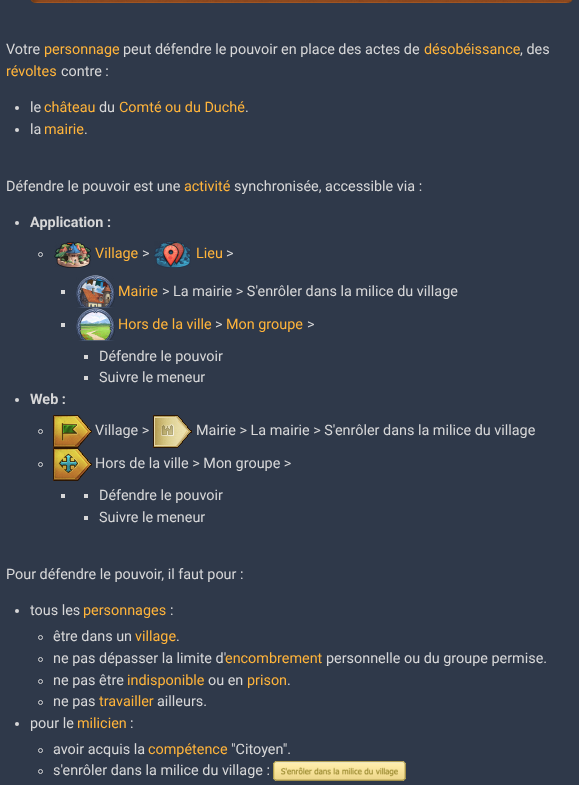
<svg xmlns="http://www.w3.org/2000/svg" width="579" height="785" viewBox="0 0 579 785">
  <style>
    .t1 { font: 14.4px Roboto; fill: #d7d7d8; }
    .t2 { font: 14.4px Roboto; fill: #ffb43b; }
    .t3 { font: bold 14.4px Roboto; fill: #d7d7d8; }
  </style>
  <rect width="100%" height="100%" fill="#2f394a"/>
  <image x="30" y="0" width="543" height="3" href="images/1.png"/>
  <text x="6" y="54" class="t1">Votre</text>
  <text x="44" y="54" class="t2">personnage</text>
  <text x="123" y="54" class="t1">peut défendre le pouvoir en place des actes de</text>
  <text x="424" y="54" class="t2">désobéissance</text>
  <text x="520" y="54" class="t1">, des</text>
  <text x="6" y="76" class="t2">révoltes</text>
  <text x="61" y="76" class="t1">contre :</text>
  <circle cx="17" cy="108" r="2" fill="#d7d7d8"/>
  <text x="30" y="112" class="t1">le</text>
  <text x="44" y="112" class="t2">château</text>
  <text x="99" y="112" class="t1">du</text>
  <text x="119" y="112" class="t2">Comté ou du Duché</text>
  <text x="245" y="112" class="t1">.</text>
  <circle cx="17" cy="130" r="2" fill="#d7d7d8"/>
  <text x="30" y="134" class="t1">la</text>
  <text x="44" y="134" class="t2">mairie</text>
  <text x="84" y="134" class="t1">.</text>
  <text x="6" y="191" class="t1">Défendre le pouvoir est une</text>
  <text x="184" y="191" class="t2">activité</text>
  <text x="234" y="191" class="t1">synchronisée, accessible via :</text>
  <circle cx="17" cy="223" r="2" fill="#d7d7d8"/>
  <text x="30" y="227" class="t3">Application :</text>
  <circle cx="40.5" cy="254.5" r="2" fill="none" stroke="#d7d7d8"/>
  <image x="54" y="241" width="37" height="27" href="images/2.png"/>
  <text x="95" y="258" class="t2">Village</text>
  <text x="142" y="258" class="t1">&gt;</text>
  <image x="154" y="241" width="37" height="27" href="images/3.png"/>
  <text x="196" y="258" class="t2">Lieu</text>
  <text x="226" y="258" class="t1">&gt;</text>
  <rect x="61" y="290" width="4" height="4" fill="#d7d7d8"/>
  <image x="76" y="275" width="39" height="33" href="images/4.png"/>
  <text x="118" y="296" class="t2">Mairie</text>
  <text x="162" y="296" class="t1">&gt; La mairie &gt; S'enrôler dans la milice du village</text>
  <rect x="61" y="323" width="4" height="4" fill="#d7d7d8"/>
  <image x="76" y="308" width="39" height="33" href="images/5.png"/>
  <text x="118" y="329" class="t2">Hors de la ville</text>
  <text x="215" y="329" class="t1">&gt;</text>
  <text x="226" y="329" class="t2">Mon groupe</text>
  <text x="307" y="329" class="t1">&gt;</text>
  <rect x="84" y="355" width="4" height="4" fill="#d7d7d8"/>
  <text x="99" y="361" class="t1">Défendre le pouvoir</text>
  <rect x="84" y="376" width="4" height="4" fill="#d7d7d8"/>
  <text x="99" y="382" class="t1">Suivre le meneur</text>
  <circle cx="17" cy="400" r="2" fill="#d7d7d8"/>
  <text x="30" y="404" class="t3">Web :</text>
  <circle cx="40.5" cy="431.5" r="2" fill="none" stroke="#d7d7d8"/>
  <image x="53" y="415" width="39" height="33" href="images/6.png"/>
  <text x="95" y="435" class="t1">Village &gt;</text>
  <image x="153" y="415" width="39" height="33" href="images/7.png"/>
  <text x="196" y="435" class="t1">Mairie &gt; La mairie &gt; S'enrôler dans la milice du village</text>
  <circle cx="40.5" cy="464.5" r="2" fill="none" stroke="#d7d7d8"/>
  <image x="53" y="448" width="39" height="33" href="images/8.png"/>
  <text x="95" y="468" class="t1">Hors de la ville &gt; Mon groupe &gt;</text>
  <rect x="61" y="494" width="4" height="4" fill="#d7d7d8"/>
  <rect x="84" y="494" width="4" height="4" fill="#d7d7d8"/>
  <text x="99" y="500" class="t1">Défendre le pouvoir</text>
  <rect x="84" y="516" width="4" height="4" fill="#d7d7d8"/>
  <text x="99" y="522" class="t1">Suivre le meneur</text>
  <text x="6" y="579" class="t1">Pour défendre le pouvoir, il faut pour :</text>
  <circle cx="17" cy="611" r="2" fill="#d7d7d8"/>
  <text x="30" y="615" class="t1">tous les</text>
  <text x="83" y="615" class="t2">personnages</text>
  <text x="170" y="615" class="t1">:</text>
  <circle cx="40.5" cy="637.5" r="2" fill="none" stroke="#d7d7d8"/>
  <text x="53" y="641" class="t1">être dans un</text>
  <text x="135" y="641" class="t2">village</text>
  <text x="176" y="641" class="t1">.</text>
  <circle cx="40.5" cy="659.5" r="2" fill="none" stroke="#d7d7d8"/>
  <text x="53" y="663" class="t1">ne pas dépasser la limite d'</text>
  <text x="225" y="663" class="t2">encombrement</text>
  <text x="326" y="663" class="t1">personnelle ou du groupe permise.</text>
  <circle cx="40.5" cy="681.5" r="2" fill="none" stroke="#d7d7d8"/>
  <text x="53" y="685" class="t1">ne pas être</text>
  <text x="127" y="685" class="t2">indisponible</text>
  <text x="208" y="685" class="t1">ou en</text>
  <text x="247" y="685" class="t2">prison</text>
  <text x="287" y="685" class="t1">.</text>
  <circle cx="40.5" cy="702.5" r="2" fill="none" stroke="#d7d7d8"/>
  <text x="53" y="706" class="t1">ne pas</text>
  <text x="99" y="706" class="t2">travailler</text>
  <text x="157" y="706" class="t1">ailleurs.</text>
  <circle cx="17" cy="724" r="2" fill="#d7d7d8"/>
  <text x="30" y="728" class="t1">pour le</text>
  <text x="77" y="728" class="t2">milicien</text>
  <text x="130" y="728" class="t1">:</text>
  <circle cx="40.5" cy="750.5" r="2" fill="none" stroke="#d7d7d8"/>
  <text x="53" y="754" class="t1">avoir acquis la</text>
  <text x="148" y="754" class="t2">compétence</text>
  <text x="231" y="754" class="t1">"Citoyen".</text>
  <circle cx="40.5" cy="771.5" r="2" fill="none" stroke="#d7d7d8"/>
  <text x="53" y="775" class="t1">s'enrôler dans la milice du village :</text>
  <image x="273" y="761" width="133" height="20" href="images/9.png"/>
</svg>
